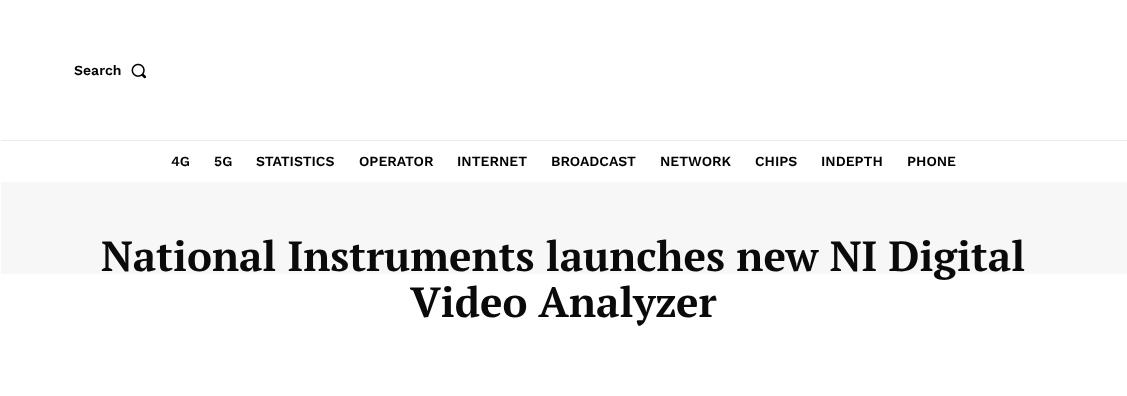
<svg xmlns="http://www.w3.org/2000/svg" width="1127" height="396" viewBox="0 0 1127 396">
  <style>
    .t1 { font: 600 14px Work Sans; fill: #000; }
    .t2 { font: bold 42px PT Serif; fill: #0a0a0a; }
  </style>
  <rect width="100%" height="100%" fill="#fff"/>
  <text x="74" y="75" class="t1">Search</text>
  <image x="131" y="63" width="16" height="16" href="images/1.png"/>
  <rect x="1" y="140" width="1126" height="1" fill="#eaeaea"/>
  <text x="171" y="166" class="t1">4G</text>
  <text x="214" y="166" class="t1">5G</text>
  <text x="256" y="166" class="t1">STATISTICS</text>
  <text x="359" y="166" class="t1">OPERATOR</text>
  <text x="457" y="166" class="t1">INTERNET</text>
  <text x="551" y="166" class="t1">BROADCAST</text>
  <text x="660" y="166" class="t1">NETWORK</text>
  <text x="755" y="166" class="t1">CHIPS</text>
  <text x="821" y="166" class="t1">INDEPTH</text>
  <text x="907" y="166" class="t1">PHONE</text>
  <rect x="1" y="182" width="1126" height="92" fill="#f7f7f7"/>
  <text x="101" y="271" class="t2">National Instruments launches new NI Digital</text>
  <text x="410" y="317" class="t2">Video Analyzer</text>
</svg>
